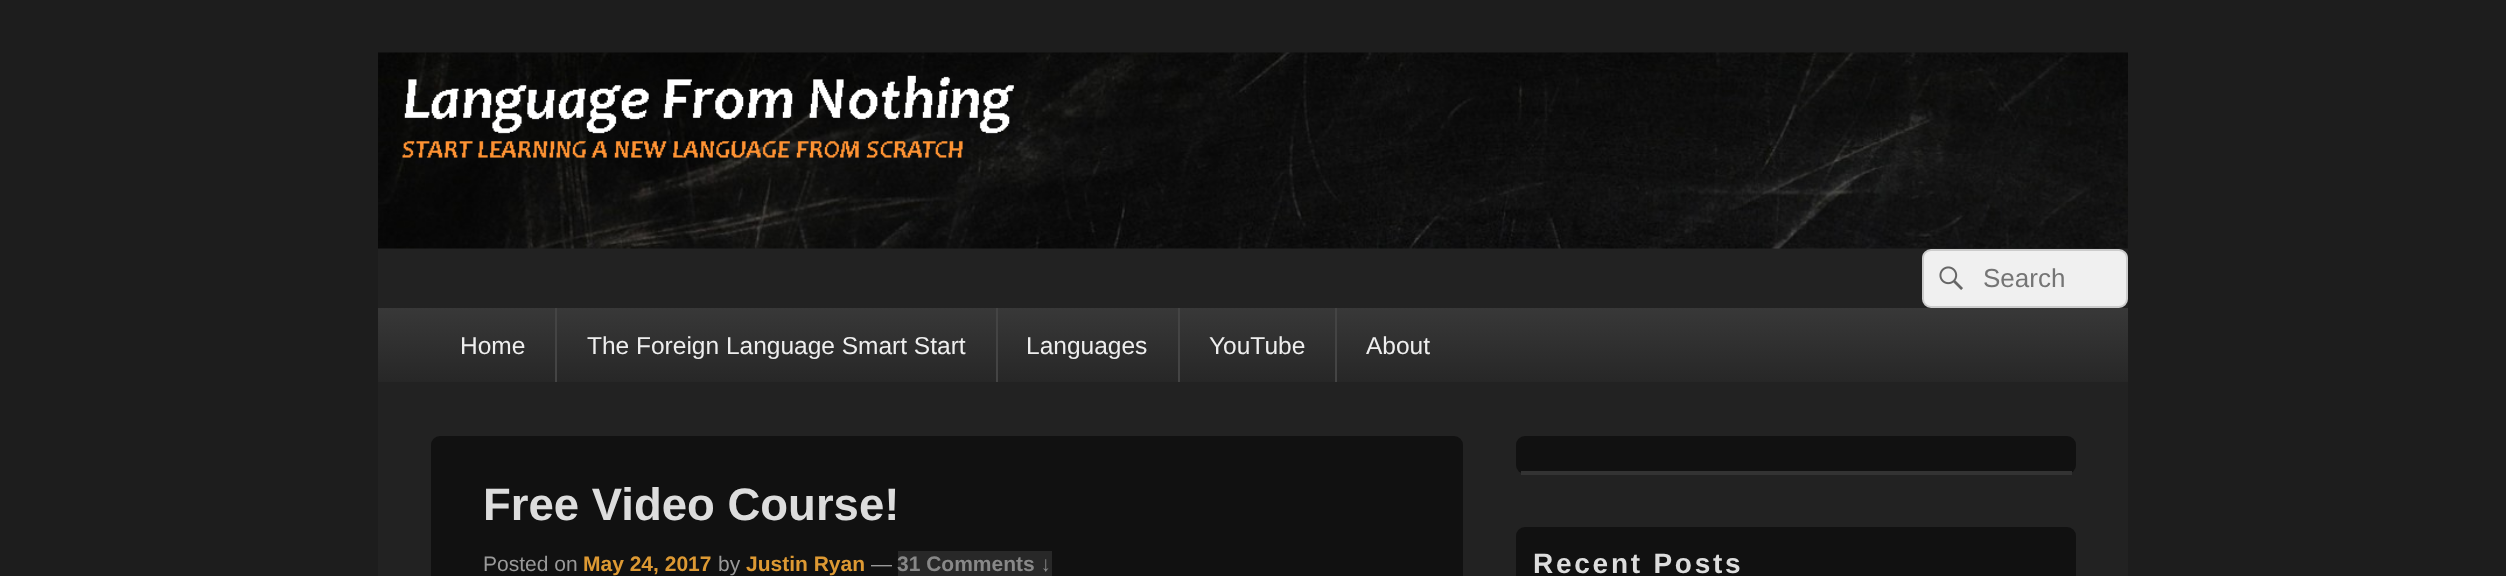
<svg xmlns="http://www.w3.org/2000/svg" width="2506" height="576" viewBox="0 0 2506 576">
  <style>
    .t1 { font: 26px Liberation Sans; fill: #757575; }
    .t2 { font: 24.5px Liberation Sans; fill: #eee; }
    .t3 { font: bold 45.5px Liberation Sans; fill: #ddd; }
    .t4 { font: 21px Liberation Sans; fill: #999; }
    .t5 { font: bold 21px Liberation Sans; fill: #d93; }
    .t6 { font: bold 21px Liberation Sans; fill: #888; }
    .t7 { font: bold 28px Liberation Sans; letter-spacing: 2.75px; fill: #ddd; }
  </style>
  <defs>
    <linearGradient id="g1" gradientUnits="userSpaceOnUse" x1="1253" y1="308" x2="1253" y2="382"><stop offset="0" stop-color="#383838"/><stop offset="1" stop-color="#272727"/></linearGradient>
  </defs>
  <rect width="100%" height="100%" fill="#1d1d1d"/>
  <rect x="378" y="248" width="1750" height="60" fill="#222"/>
  <image x="378" y="52" width="1750" height="197" href="images/1.png"/>
  <rect x="1923" y="250" width="204" height="57" rx="8" fill="#f0f0f0" stroke="#ccc" stroke-width="2"/>
  <image x="1939" y="266" width="24" height="24" href="images/2.png"/>
  <text x="1983" y="287" class="t1">Search</text>
  <rect x="378" y="308" width="1750" height="74" fill="url(#g1)"/>
  <text x="460" y="354" class="t2">Home</text>
  <rect x="555" y="308" width="2" height="74" fill="#444"/>
  <text x="587" y="354" class="t2">The Foreign Language Smart Start</text>
  <rect x="996" y="308" width="2" height="74" fill="#444"/>
  <text x="1026" y="354" class="t2">Languages</text>
  <rect x="1178" y="308" width="2" height="74" fill="#444"/>
  <text x="1209" y="354" class="t2">YouTube</text>
  <rect x="1335" y="308" width="2" height="74" fill="#444"/>
  <text x="1366" y="354" class="t2">About</text>
  <rect x="378" y="382" width="1750" height="194" fill="#222"/>
  <rect x="431" y="436" width="1032" height="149" rx="9" fill="#111"/>
  <text x="483" y="520" class="t3">Free Video Course!</text>
  <text x="483" y="571" class="t4">Posted on</text>
  <text x="583" y="571" class="t5">May 24, 2017</text>
  <text x="718" y="571" class="t4">by</text>
  <text x="746" y="571" class="t5">Justin Ryan</text>
  <text x="871" y="571" class="t4">—</text>
  <rect x="898" y="551" width="154" height="25" fill="#282828"/>
  <text x="897" y="571" class="t6">31 Comments ↓</text>
  <rect x="1516" y="436" width="560" height="38" rx="9" fill="#111"/>
  <rect x="1521" y="471" width="551" height="4" fill="#333"/>
  <rect x="1516" y="527" width="560" height="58" rx="9" fill="#111"/>
  <text x="1533" y="573" class="t7">Recent Posts</text>
</svg>
